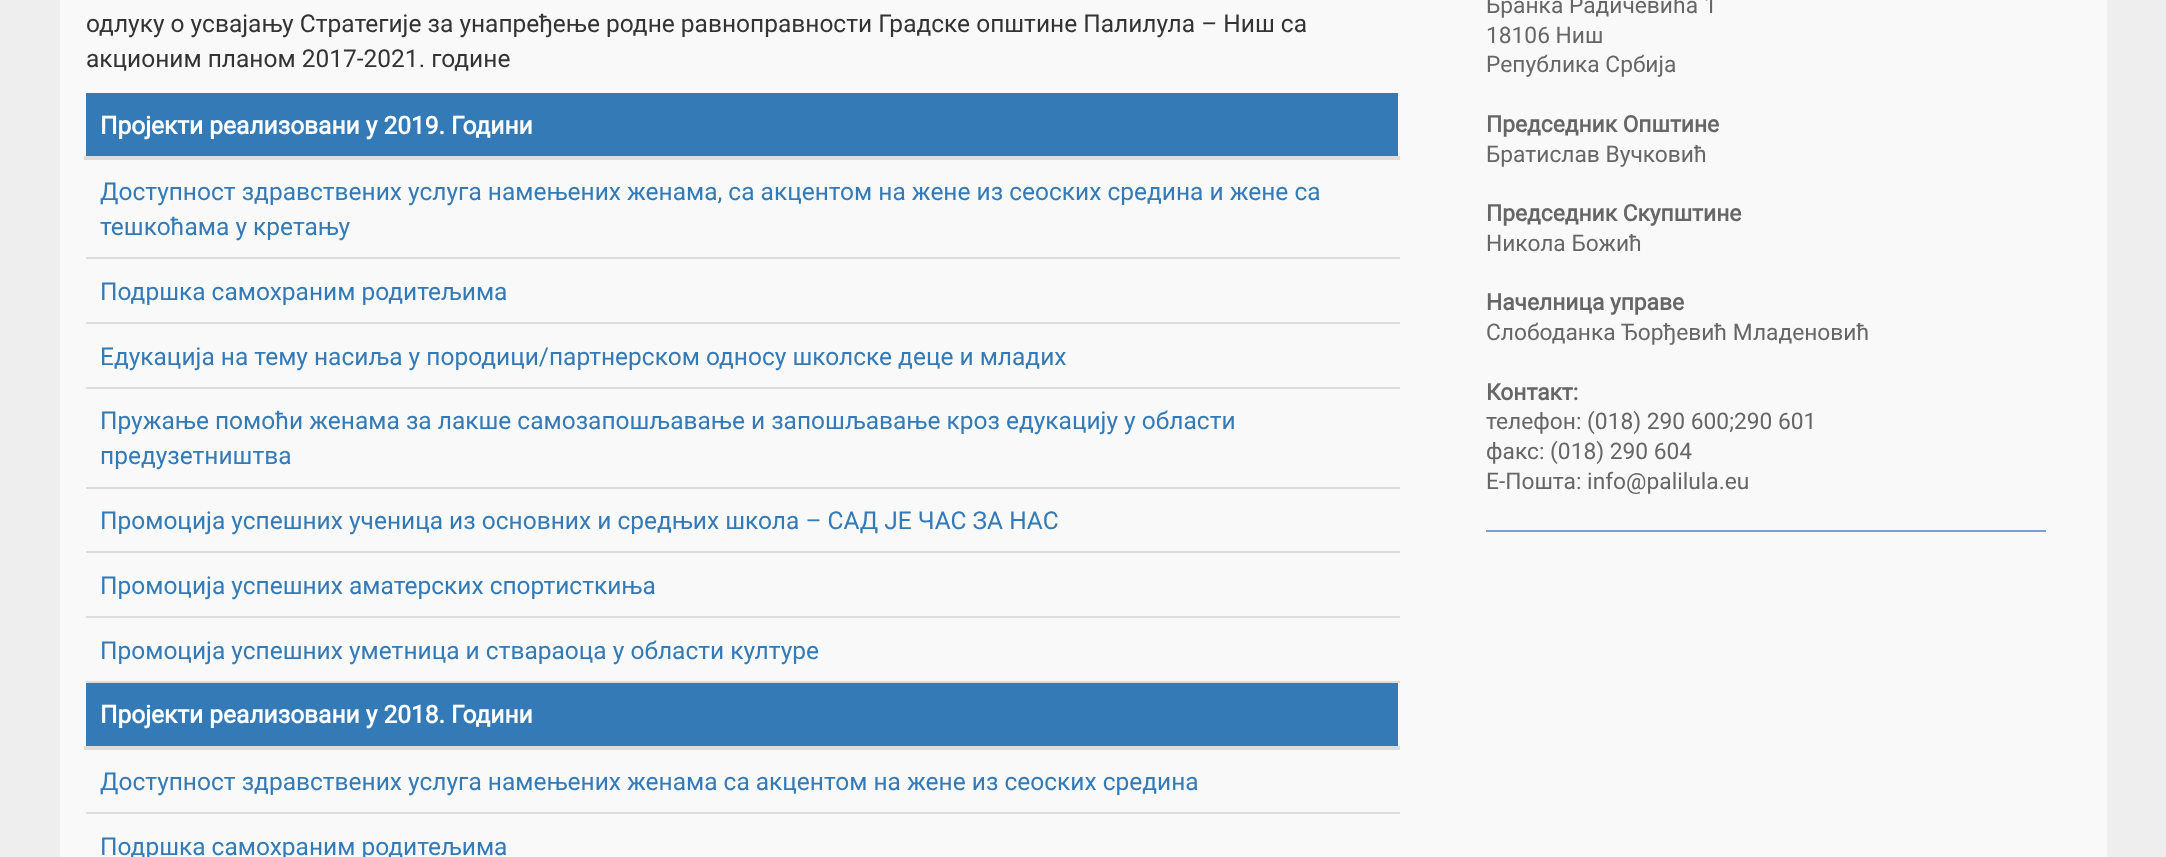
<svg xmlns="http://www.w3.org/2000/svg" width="2166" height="857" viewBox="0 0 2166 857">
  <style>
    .t1 { font: 24.5px Roboto; fill: #333; }
    .t2 { font: bold 24.5px Roboto; fill: #fff; }
    .t3 { font: 24.5px Roboto; fill: #337ab7; }
    .t4 { font: 22.75px Roboto; fill: #666; }
    .t5 { font: bold 22.75px Roboto; fill: #666; }
  </style>
  <rect width="100%" height="100%" fill="#eee"/>
  <rect x="60" y="0" width="2047" height="857" fill="#f9f9f9"/>
  <text x="86" y="32" class="t1">одлуку о усвајању Стратегије за унапређење родне равноправности Градске општине Палилула – Ниш са</text>
  <text x="86" y="67" class="t1">акционим планом 2017-2021. године</text>
  <rect x="86" y="93" width="1312" height="63" fill="#337ab7"/>
  <rect x="84" y="156" width="1316" height="4" fill="#ddd"/>
  <text x="100" y="134" class="t2">Пројекти реализовани у 2019. Години</text>
  <text x="100" y="200" class="t3">Доступност здравствених услуга намењених женама, са акцентом на жене из сеоских средина и жене са</text>
  <text x="100" y="235" class="t3">тешкоћама у кретању</text>
  <rect x="86" y="257" width="1314" height="2" fill="#ddd"/>
  <text x="100" y="300" class="t3">Подршка самохраним родитељима</text>
  <rect x="86" y="322" width="1314" height="2" fill="#ddd"/>
  <text x="100" y="365" class="t3">Едукација на тему насиља у породици/партнерском односу школске деце и младих</text>
  <rect x="86" y="387" width="1314" height="2" fill="#ddd"/>
  <text x="100" y="429" class="t3">Пружање помоћи женама за лакше самозапошљавање и запошљавање кроз едукацију у области</text>
  <text x="100" y="464" class="t3">предузетништва</text>
  <rect x="86" y="487" width="1314" height="2" fill="#ddd"/>
  <text x="100" y="529" class="t3">Промоција успешних ученица из основних и средњих школа – САД ЈЕ ЧАС ЗА НАС</text>
  <rect x="86" y="551" width="1314" height="2" fill="#ddd"/>
  <text x="100" y="594" class="t3">Промоција успешних аматерских спортисткиња</text>
  <rect x="86" y="616" width="1314" height="2" fill="#ddd"/>
  <text x="100" y="659" class="t3">Промоција успешних уметница и ствараоца у области културе</text>
  <rect x="86" y="683" width="1312" height="63" fill="#337ab7"/>
  <rect x="86" y="681" width="1314" height="2" fill="#ddd"/>
  <rect x="84" y="746" width="1316" height="4" fill="#ddd"/>
  <text x="100" y="723" class="t2">Пројекти реализовани у 2018. Години</text>
  <text x="100" y="790" class="t3">Доступност здравствених услуга намењених женама са акцентом на жене из сеоских средина</text>
  <rect x="86" y="812" width="1314" height="2" fill="#ddd"/>
  <text x="100" y="855" class="t3">Подршка самохраним родитељима</text>
  <rect x="1486" y="530" width="560" height="2" fill="#7f9fd4"/>
  <text x="1486" y="13" class="t4">Бранка Радичевића 1</text>
  <text x="1486" y="43" class="t4">18106 Ниш</text>
  <text x="1486" y="72" class="t4">Република Србија</text>
  <text x="1486" y="132" class="t5">Председник Општине</text>
  <text x="1486" y="162" class="t4">Братислав Вучковић</text>
  <text x="1486" y="221" class="t5">Председник Скупштине</text>
  <text x="1486" y="251" class="t4">Никола Божић</text>
  <text x="1486" y="310" class="t5">Начелница управе</text>
  <text x="1486" y="340" class="t4">Слободанка Ђорђевић Младеновић</text>
  <text x="1486" y="400" class="t5">Контакт:</text>
  <text x="1486" y="429" class="t4">телефон: (018) 290 600;290 601</text>
  <text x="1486" y="459" class="t4">факс: (018) 290 604</text>
  <text x="1486" y="489" class="t4">Е-Пошта: info@palilula.eu</text>
</svg>
